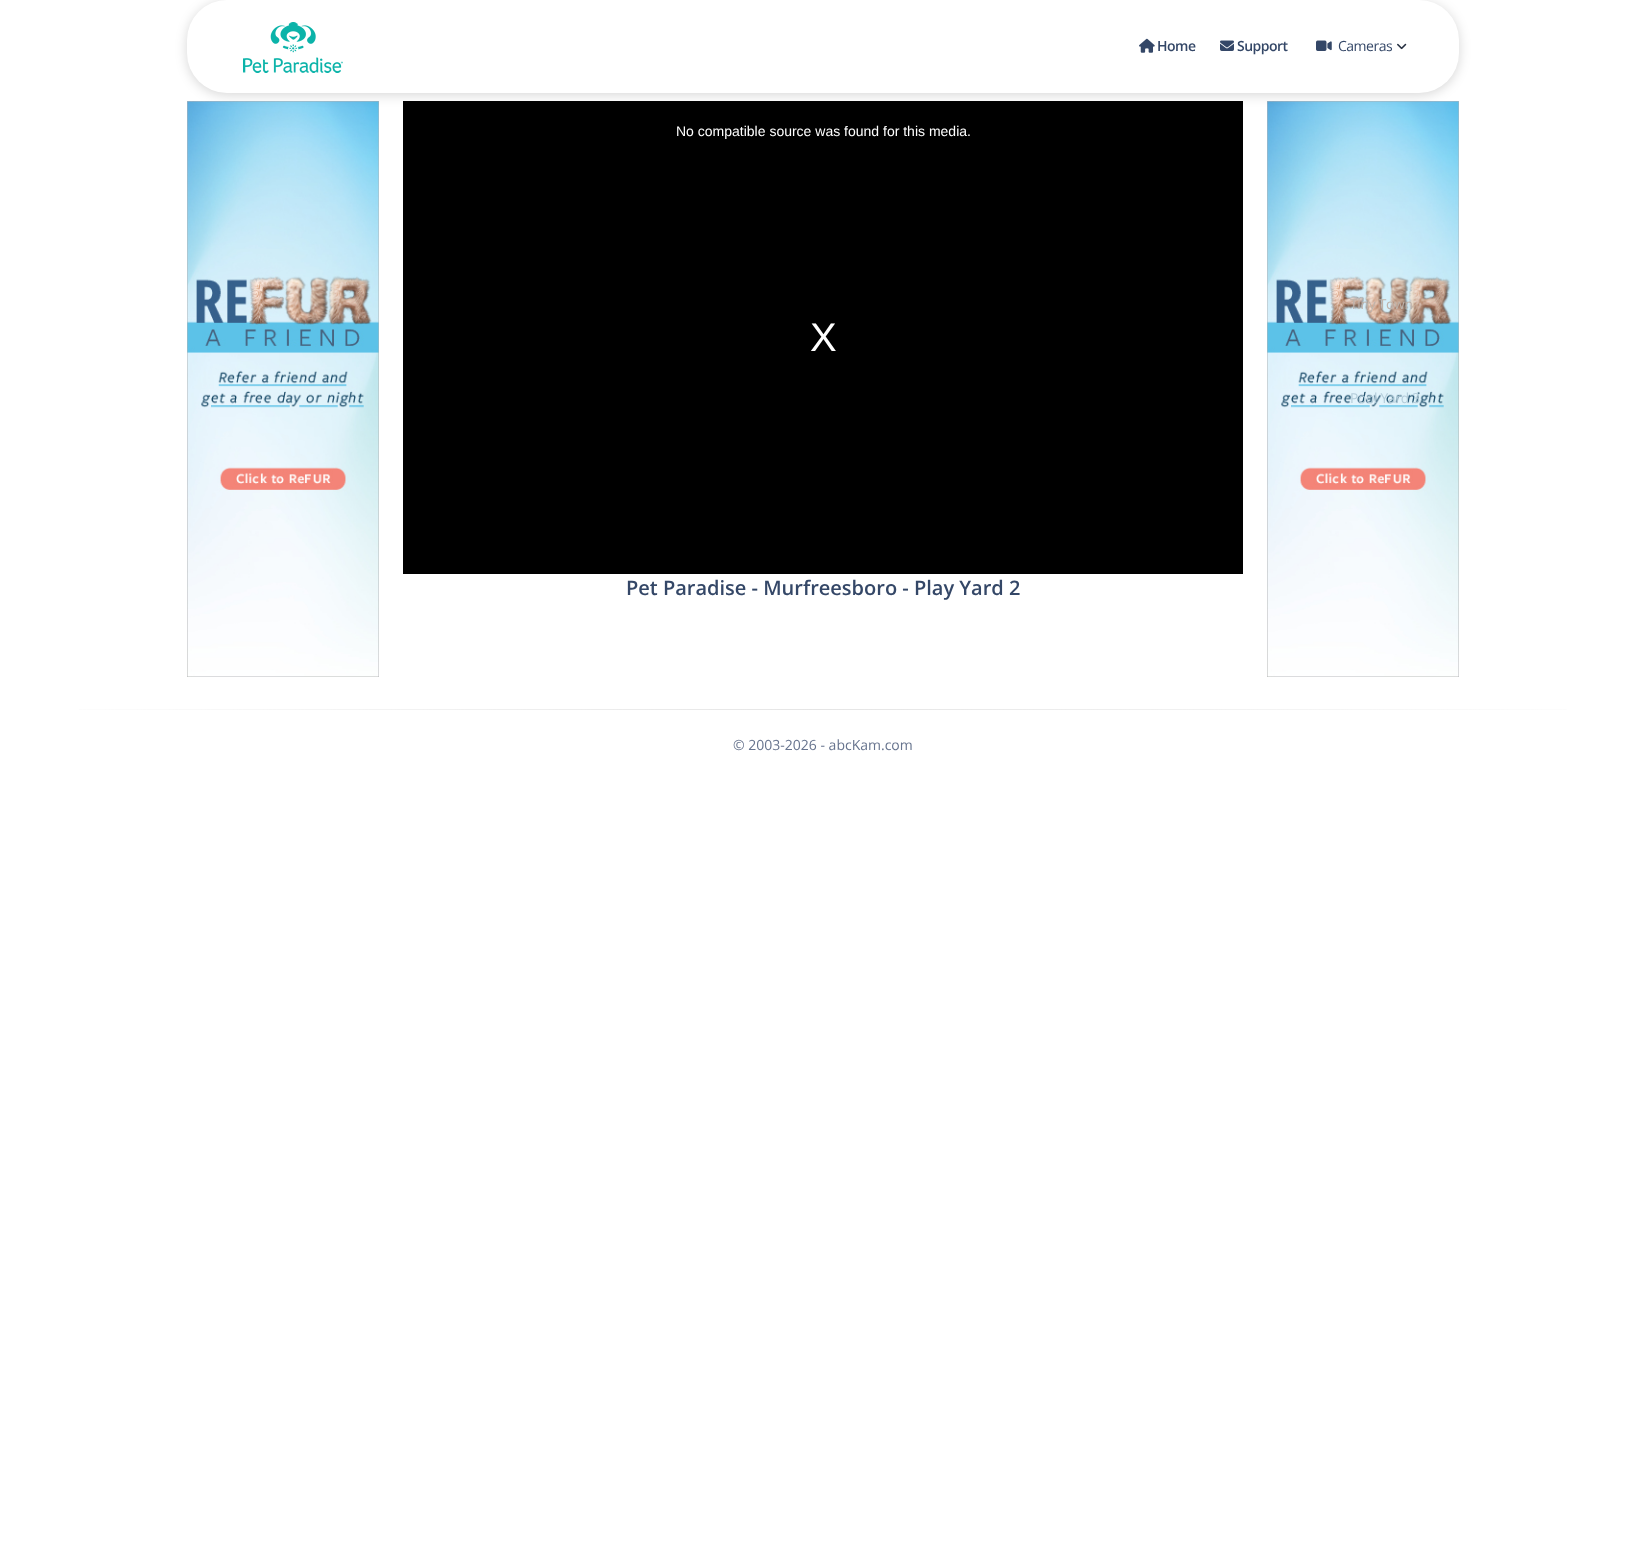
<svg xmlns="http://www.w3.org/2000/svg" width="1646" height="1558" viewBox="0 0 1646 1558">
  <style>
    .t1 { font: 14px Liberation Sans; fill: #fff; }
    .t2 { font: 40px Liberation Sans; fill: #fff; }
    .t3 { font: 600 20px Open Sans; fill: #344767; }
    .t4 { font: 600 14px Open Sans; letter-spacing: -0.5px; fill: #344767; }
    .t5 { font: 14px Open Sans; letter-spacing: -0.5px; fill: #344767; }
    .t6 { font: 13.75px Open Sans; letter-spacing: -0.25px; fill: #beb3ab; }
    .t7 { font: 13.75px Open Sans; letter-spacing: -0.25px; fill: #b4cdda; }
    .t8 { font: 14px Open Sans; fill: #67748e; }
  </style>
  <defs>
    <linearGradient id="g1" gradientUnits="userSpaceOnUse" x1="0" y1="710" x2="1646" y2="710"><stop offset="0" stop-color="#fff"/><stop offset="0.5" stop-color="#e5e5e5"/><stop offset="1" stop-color="#fff"/></linearGradient>
  </defs>
  <rect width="100%" height="100%" fill="#fff"/>
  <image x="187" y="101" width="192" height="576" href="images/1.png"/>
  <rect x="403" y="101" width="840" height="473" fill="#000"/>
  <text x="676" y="136" class="t1">No compatible source was found for this media.</text>
  <text x="810" y="351" class="t2">X</text>
  <text x="626" y="595" class="t3">Pet Paradise - Murfreesboro - Play Yard 2</text>
  <image x="1267" y="101" width="192" height="576" href="images/2.png"/>
  <rect x="187" y="2" width="1272" height="93" rx="40" fill="#00000029" filter="blur(6px)"/>
  <rect x="187" y="0" width="1272" height="93" rx="40" fill="#fff"/>
  <image x="243" y="22" width="100" height="51" href="images/3.png"/>
  <image x="1139" y="38" width="16" height="15" href="images/4.png"/>
  <text x="1157" y="51" class="t4">Home</text>
  <image x="1220" y="40" width="14" height="11" href="images/5.png"/>
  <text x="1237" y="51" class="t4">Support</text>
  <image x="1316" y="40" width="16" height="11" href="images/6.png"/>
  <text x="1338" y="51" class="t5">Cameras</text>
  <image x="1397" y="43" width="10" height="7" href="images/7.png"/>
  <text x="1350" y="309" class="t6">Tiny Town</text>
  <text x="1350" y="403" class="t7">Pool Yard 3</text>
  <rect x="79" y="709" width="1488" height="1" fill="url(#g1)"/>
  <text x="733" y="750" class="t8">© 2003-2026 - abcKam.com</text>
</svg>
